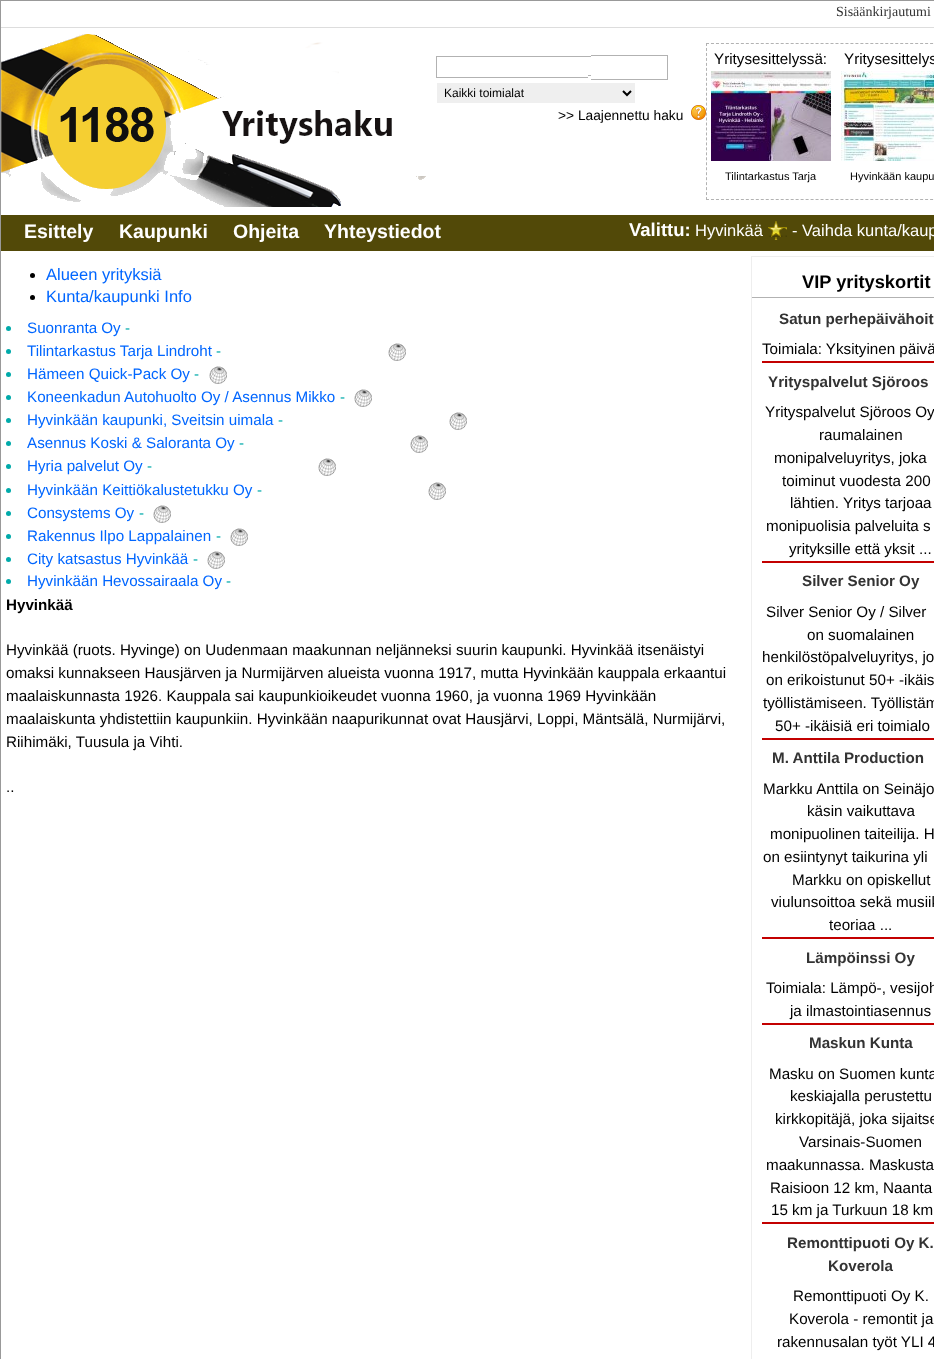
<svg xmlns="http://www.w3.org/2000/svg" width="934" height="1359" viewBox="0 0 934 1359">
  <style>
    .t1 { font: 14px Liberation Serif; fill: #333; }
    .t2 { font: 12px Liberation Sans; fill: #000; }
    .t3 { font: 13.75px Liberation Sans; fill: #000; }
    .t4 { font: 15.2px Liberation Sans; fill: #000; }
    .t5 { font: 11px Liberation Sans; fill: #000; }
    .t6 { font: bold 19.5px Liberation Sans; fill: #fff; }
    .t7 { font: bold 18.5px Liberation Sans; fill: #fff; }
    .t8 { font: 16.5px Liberation Sans; fill: #fff; }
    .t9 { font: 16.5px Liberation Sans; fill: #06f; }
    .t10 { font: 15.2px Liberation Sans; fill: #06f; }
    .t11 { font: 15.2px Liberation Sans; fill: #0aa; }
    .t12 { font: bold 15.2px Liberation Sans; fill: #000; }
    .t13 { font: bold 18.25px Liberation Sans; fill: #000; }
    .t14 { font: bold 15.2px Liberation Sans; fill: #333; }
  </style>
  <rect width="100%" height="100%" fill="#fff"/>
  <rect x="0.5" y="0.5" width="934" height="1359" fill="none" stroke="#999"/>
  <rect x="1" y="27" width="933" height="1" fill="#ddd"/>
  <text x="836" y="16" class="t1">Sisäänkirjautumi</text>
  <image x="1" y="34" width="425" height="173" href="images/1.png"/>
  <rect x="591" y="55" width="77" height="1" fill="#b2b2b2"/>
  <rect x="436" y="56" width="155" height="1" fill="#b2b2b2"/>
  <rect x="667" y="55" width="1" height="25" fill="#b2b2b2"/>
  <rect x="436" y="77" width="152" height="1" fill="#b2b2b2"/>
  <rect x="436" y="56" width="1" height="22" fill="#b2b2b2"/>
  <rect x="588" y="75" width="3" height="1" fill="#b2b2b2"/>
  <rect x="591" y="79" width="77" height="1" fill="#b2b2b2"/>
  <rect x="437" y="83" width="198" height="20" fill="#efefef"/>
  <path d="M623 91L627 95L631 91" fill="none" stroke="#000" stroke-width="2"/>
  <text x="444" y="97" class="t2">Kaikki toimialat</text>
  <text x="558" y="120" class="t3">&gt;&gt; Laajennettu haku</text>
  <image x="691" y="105" width="15" height="15" href="images/2.png"/>
  <path d="M706 43.5H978" fill="none" stroke="#b2b2b2" stroke-dasharray="3 1.98"/>
  <path d="M706 199.5H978" fill="none" stroke="#b2b2b2" stroke-dasharray="3 1.98"/>
  <path d="M706.5 43V200" fill="none" stroke="#b2b2b2" stroke-dasharray="3 1.97"/>
  <text x="714" y="64" class="t4">Yritysesittelyssä:</text>
  <image x="711" y="71" width="120" height="90" href="images/3.png"/>
  <text x="725" y="180" class="t5">Tilintarkastus Tarja</text>
  <text x="844" y="64" class="t4">Yritysesittelys</text>
  <image x="841" y="71" width="93" height="90" href="images/4.png"/>
  <text x="850" y="180" class="t5">Hyvinkään kaupu</text>
  <rect x="1" y="215" width="933" height="36" fill="#524908"/>
  <text x="24" y="238" class="t6">Esittely</text>
  <text x="119" y="238" class="t6">Kaupunki</text>
  <text x="233" y="238" class="t6">Ohjeita</text>
  <text x="324" y="238" class="t6">Yhteystiedot</text>
  <text x="629" y="236" class="t7">Valittu:</text>
  <text x="695" y="236" class="t8">Hyvinkää</text>
  <image x="768" y="221" width="19" height="19" href="images/5.png"/>
  <text x="792" y="236" class="t8">- Vaihda kunta/kaup</text>
  <circle cx="32.5" cy="275.5" r="2.5" fill="#000"/>
  <text x="46" y="280" class="t9">Alueen yrityksiä</text>
  <circle cx="32.5" cy="297.5" r="2.5" fill="#000"/>
  <text x="46" y="302" class="t9">Kunta/kaupunki Info</text>
  <circle cx="8.5" cy="328.5" r="2.5" fill="#0aa"/>
  <text x="27" y="333" class="t10">Suonranta Oy</text>
  <text x="125" y="333" class="t11">-</text>
  <circle cx="8.5" cy="351.5" r="2.5" fill="#0aa"/>
  <text x="27" y="356" class="t10">Tilintarkastus Tarja Lindroht</text>
  <text x="216" y="356" class="t11">-</text>
  <image x="388" y="343" width="18" height="18" href="images/6.png"/>
  <circle cx="8.5" cy="374.5" r="2.5" fill="#0aa"/>
  <text x="27" y="379" class="t10">Hämeen Quick-Pack Oy</text>
  <text x="194" y="379" class="t11">-</text>
  <image x="209" y="366" width="18" height="18" href="images/6.png"/>
  <circle cx="8.5" cy="397.5" r="2.5" fill="#0aa"/>
  <text x="27" y="402" class="t10">Koneenkadun Autohuolto Oy / Asennus Mikko</text>
  <text x="340" y="402" class="t11">-</text>
  <image x="354" y="389" width="18" height="18" href="images/6.png"/>
  <circle cx="8.5" cy="420.5" r="2.5" fill="#0aa"/>
  <text x="27" y="425" class="t10">Hyvinkään kaupunki, Sveitsin uimala</text>
  <text x="278" y="425" class="t11">-</text>
  <image x="449" y="412" width="18" height="18" href="images/6.png"/>
  <circle cx="8.5" cy="443.5" r="2.5" fill="#0aa"/>
  <text x="27" y="448" class="t10">Asennus Koski &amp; Saloranta Oy</text>
  <text x="239" y="448" class="t11">-</text>
  <image x="410" y="435" width="18" height="18" href="images/6.png"/>
  <circle cx="8.5" cy="466.5" r="2.5" fill="#0aa"/>
  <text x="27" y="471" class="t10">Hyria palvelut Oy</text>
  <text x="147" y="471" class="t11">-</text>
  <image x="318" y="458" width="18" height="18" href="images/6.png"/>
  <circle cx="8.5" cy="490.5" r="2.5" fill="#0aa"/>
  <text x="27" y="495" class="t10">Hyvinkään Keittiökalustetukku Oy</text>
  <text x="257" y="495" class="t11">-</text>
  <image x="428" y="482" width="18" height="18" href="images/6.png"/>
  <circle cx="8.5" cy="513.5" r="2.5" fill="#0aa"/>
  <text x="27" y="518" class="t10">Consystems Oy</text>
  <text x="139" y="518" class="t11">-</text>
  <image x="153" y="505" width="18" height="18" href="images/6.png"/>
  <circle cx="8.5" cy="536.5" r="2.5" fill="#0aa"/>
  <text x="27" y="541" class="t10">Rakennus Ilpo Lappalainen</text>
  <text x="216" y="541" class="t11">-</text>
  <image x="230" y="528" width="18" height="18" href="images/6.png"/>
  <circle cx="8.5" cy="559.5" r="2.5" fill="#0aa"/>
  <text x="27" y="564" class="t10">City katsastus Hyvinkää</text>
  <text x="193" y="564" class="t11">-</text>
  <image x="207" y="551" width="18" height="18" href="images/6.png"/>
  <circle cx="8.5" cy="581.5" r="2.5" fill="#0aa"/>
  <text x="27" y="586" class="t10">Hyvinkään Hevossairaala Oy</text>
  <text x="226" y="586" class="t11">-</text>
  <text x="6" y="610" class="t12">Hyvinkää</text>
  <text x="6" y="655" class="t4">Hyvinkää (ruots. Hyvinge) on Uudenmaan maakunnan neljänneksi suurin kaupunki. Hyvinkää itsenäistyi</text>
  <text x="6" y="678" class="t4">omaksi kunnakseen Hausjärven ja Nurmijärven alueista vuonna 1917, mutta Hyvinkään kauppala erkaantui</text>
  <text x="6" y="701" class="t4">maalaiskunnasta 1926. Kauppala sai kaupunkioikeudet vuonna 1960, ja vuonna 1969 Hyvinkään</text>
  <text x="6" y="724" class="t4">maalaiskunta yhdistettiin kaupunkiin. Hyvinkään naapurikunnat ovat Hausjärvi, Loppi, Mäntsälä, Nurmijärvi,</text>
  <text x="6" y="747" class="t4">Riihimäki, Tuusula ja Vihti.</text>
  <text x="6" y="792" class="t4">..</text>
  <rect x="751.5" y="256.5" width="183" height="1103" fill="none" stroke="#eee"/>
  <rect x="752" y="297" width="182" height="1" fill="#b2b2b2"/>
  <text x="802" y="288" class="t13">VIP yrityskortit</text>
  <text x="779" y="324" class="t14">Satun perhepäivähoit</text>
  <text x="762" y="354" class="t4">Toimiala: Yksityinen päivä</text>
  <rect x="762" y="361" width="172" height="2" fill="#c30000"/>
  <text x="768" y="387" class="t14">Yrityspalvelut Sjöroos</text>
  <text x="765" y="417" class="t4">Yrityspalvelut Sjöroos Oy</text>
  <text x="819" y="440" class="t4">raumalainen</text>
  <text x="774" y="463" class="t4">monipalveluyritys, joka</text>
  <text x="782" y="486" class="t4">toiminut vuodesta 200</text>
  <text x="790" y="508" class="t4">lähtien. Yritys tarjoaa</text>
  <text x="766" y="531" class="t4">monipuolisia palveluita s</text>
  <text x="789" y="554" class="t4">yrityksille että yksit ...</text>
  <rect x="762" y="561" width="172" height="2" fill="#c30000"/>
  <text x="802" y="586" class="t14">Silver Senior Oy</text>
  <text x="766" y="617" class="t4">Silver Senior Oy / Silver</text>
  <text x="807" y="640" class="t4">on suomalainen</text>
  <text x="762" y="662" class="t4">henkilöstöpalveluyritys, jo</text>
  <text x="766" y="685" class="t4">on erikoistunut 50+ -ikäis</text>
  <text x="763" y="708" class="t4">työllistämiseen. Työllistäm</text>
  <text x="775" y="731" class="t4">50+ -ikäisiä eri toimialo</text>
  <rect x="762" y="738" width="172" height="2" fill="#c30000"/>
  <text x="772" y="763" class="t14">M. Anttila Production</text>
  <text x="763" y="794" class="t4">Markku Anttila on Seinäjo</text>
  <text x="807" y="816" class="t4">käsin vaikuttava</text>
  <text x="770" y="839" class="t4">monipuolinen taiteilija. H</text>
  <text x="763" y="862" class="t4">on esiintynyt taikurina yli</text>
  <text x="792" y="885" class="t4">Markku on opiskellut</text>
  <text x="771" y="907" class="t4">viulunsoittoa sekä musiik</text>
  <text x="829" y="930" class="t4">teoriaa ...</text>
  <rect x="762" y="937" width="172" height="2" fill="#c30000"/>
  <text x="806" y="963" class="t14">Lämpöinssi Oy</text>
  <text x="766" y="993" class="t4">Toimiala: Lämpö-, vesijoh</text>
  <text x="790" y="1016" class="t4">ja ilmastointiasennus</text>
  <rect x="762" y="1023" width="172" height="2" fill="#c30000"/>
  <text x="809" y="1048" class="t14">Maskun Kunta</text>
  <text x="769" y="1079" class="t4">Masku on Suomen kunta</text>
  <text x="790" y="1101" class="t4">keskiajalla perustettu</text>
  <text x="775" y="1124" class="t4">kirkkopitäjä, joka sijaitse</text>
  <text x="799" y="1147" class="t4">Varsinais-Suomen</text>
  <text x="766" y="1170" class="t4">maakunnassa. Maskusta</text>
  <text x="770" y="1193" class="t4">Raisioon 12 km, Naanta</text>
  <text x="771" y="1215" class="t4">15 km ja Turkuun 18 km</text>
  <rect x="762" y="1222" width="172" height="2" fill="#c30000"/>
  <text x="787" y="1248" class="t14">Remonttipuoti Oy K.</text>
  <text x="828" y="1271" class="t14">Koverola</text>
  <text x="793" y="1301" class="t4">Remonttipuoti Oy K.</text>
  <text x="789" y="1324" class="t4">Koverola - remontit ja</text>
  <text x="777" y="1347" class="t4">rakennusalan työt YLI 4</text>
</svg>
